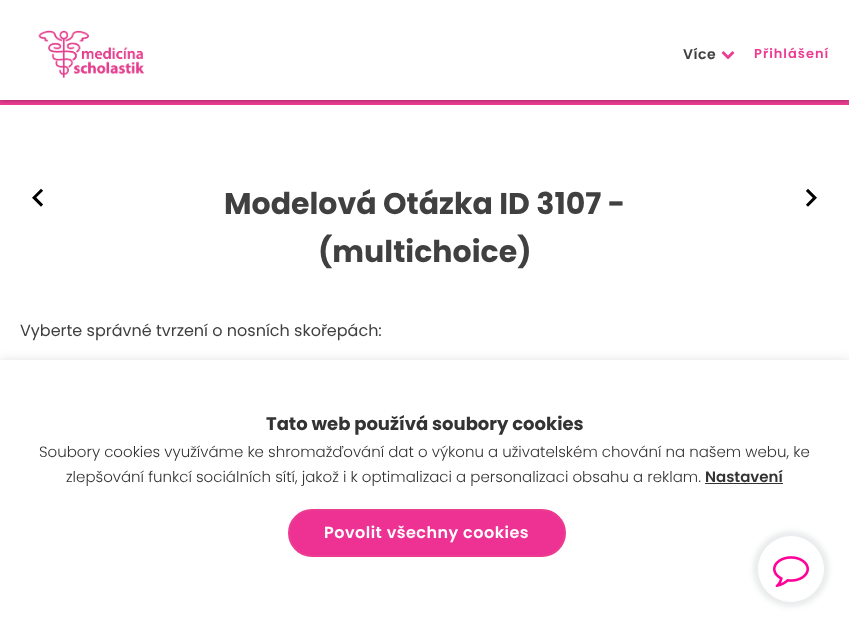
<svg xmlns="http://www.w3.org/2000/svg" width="849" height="627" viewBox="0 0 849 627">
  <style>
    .t1 { font: 600 14px Poppins; letter-spacing: 0.5px; fill: #404040; }
    .t2 { font: 600 13px Poppins; letter-spacing: 1px; fill: #ec3c92; }
    .t3 { font: bold 30px Poppins; fill: #404040; }
    .t4 { font: 16px Poppins; fill: #404040; }
    .t5 { font: bold 18px Poppins; fill: #333; }
    .t6 { font: 300 15px Poppins; fill: #333; }
    .t7 { font: 600 15px Poppins; fill: #333; }
    .t8 { font: 600 16px Poppins; letter-spacing: 0.5px; fill: #fff; }
  </style>
  <defs>
    <clipPath id="clip1"><rect x="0" y="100" width="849" height="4"/></clipPath>
  </defs>
  <rect width="100%" height="100%" fill="#fff"/>
  <rect x="0" y="100" width="849" height="5" fill="#ec3c92"/>
  <g clip-path="url(#clip1)">
    <rect x="0" y="0" width="849" height="100" fill="#00000069" filter="blur(2.5px)"/>
  </g>
  <image x="38" y="30" width="107" height="48" href="images/1.png"/>
  <text x="683" y="59" class="t1">Více</text>
  <image x="721" y="51" width="14" height="9" href="images/2.png"/>
  <text x="754" y="58" class="t2">Přihlášení</text>
  <image x="32" y="188" width="11" height="19" href="images/3.png"/>
  <text x="224" y="214" class="t3">Modelová Otázka ID 3107 -</text>
  <text x="318" y="262" class="t3">(multichoice)</text>
  <image x="806" y="188" width="11" height="19" href="images/4.png"/>
  <text x="20" y="336" class="t4">Vyberte správné tvrzení o nosních skořepách:</text>
  <rect x="0" y="359" width="849" height="267" fill="#acabab4d" filter="blur(5px)"/>
  <rect x="0" y="360" width="849" height="267" fill="#fff"/>
  <text x="266" y="430" class="t5">Tato web používá soubory cookies</text>
  <text x="39" y="457" class="t6">Soubory cookies využíváme ke shromažďování dat o výkonu a uživatelském chování na našem webu, ke</text>
  <text x="66" y="482" class="t6">zlepšování funkcí sociálních sítí, jakož i k optimalizaci a personalizaci obsahu a reklam.</text>
  <text x="705" y="482" class="t7">Nastavení</text>
  <rect x="705" y="483" width="78" height="1" fill="#333"/>
  <rect x="289" y="510" width="276" height="46" rx="23" fill="#ee3293" stroke="#ec3c92" stroke-width="2"/>
  <text x="324" y="538" class="t8">Povolit všechny cookies</text>
  <rect x="753" y="531" width="76" height="76" rx="38" fill="#09202c17" filter="blur(2.5px)"/>
  <circle cx="791" cy="569" r="32.5" fill="#fff" stroke="#fff"/>
  <image x="773" y="556" width="36" height="31" href="images/5.png"/>
</svg>
